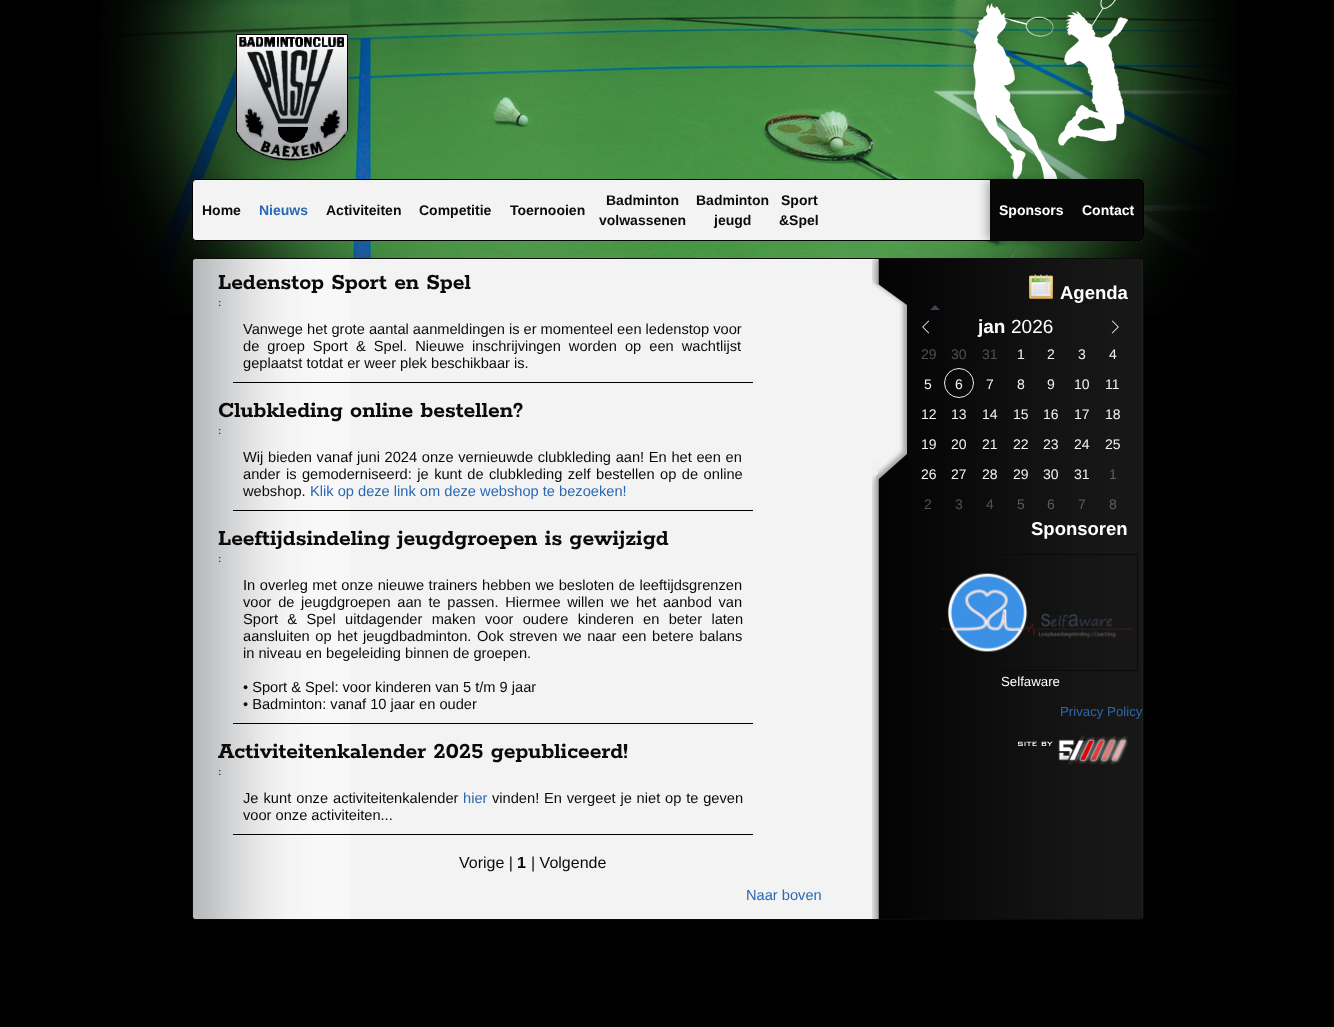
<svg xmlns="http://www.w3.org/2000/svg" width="1334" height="1027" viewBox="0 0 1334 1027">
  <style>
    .t1 { font: bold 14px Liberation Sans; fill: #0a0a0a; }
    .t2 { font: bold 14px Liberation Sans; fill: #2968b2; }
    .t3 { font: bold 14px Liberation Sans; fill: #fff; }
    .t4 { font: 600 24px Rokkitt; fill: #0a0a0a; }
    .t5 { font: bold 10px Liberation Sans; fill: #3b3b3b; }
    .t6 { font: 14.65px Liberation Sans; fill: #0a0a0a; }
    .t7 { font: 14.65px Liberation Sans; fill: #2968b2; }
    .t8 { font: 16px Liberation Sans; fill: #0a0a0a; }
    .t9 { font: bold 16px Liberation Sans; fill: #0a0a0a; }
    .t10 { font: bold 18.5px Liberation Sans; fill: #fff; }
    .t11 { font: bold 19px Liberation Sans; fill: #fff; }
    .t12 { font: 19px Liberation Sans; fill: #fff; }
    .t13 { font: 14px Liberation Sans; fill: #525151; }
    .t14 { font: 14px Liberation Sans; fill: #f3f3f3; }
    .t15 { font: 14px Liberation Sans; fill: #5d5d5c; }
    .t16 { font: 13.25px Liberation Sans; fill: #fff; }
    .t17 { font: 13.25px Liberation Sans; fill: #2968b2; }
  </style>
  <rect width="100%" height="100%" fill="#000"/>
  <image x="100" y="0" width="1137" height="315" href="images/1.png"/>
  <image x="222" y="0" width="912" height="179" href="images/2.png"/>
  <rect x="192.5" y="179.5" width="951" height="61" rx="3.5" fill="#f3f3f3" stroke="#000"/>
  <text x="202" y="215" class="t1">Home</text>
  <text x="259" y="215" class="t2">Nieuws</text>
  <text x="326" y="215" class="t1">Activiteiten</text>
  <text x="419" y="215" class="t1">Competitie</text>
  <text x="510" y="215" class="t1">Toernooien</text>
  <text x="606" y="205" class="t1">Badminton</text>
  <text x="599" y="225" class="t1">volwassenen</text>
  <text x="696" y="205" class="t1">Badminton</text>
  <text x="714" y="225" class="t1">jeugd</text>
  <text x="781" y="205" class="t1">Sport</text>
  <text x="779" y="225" class="t1">&amp;Spel</text>
  <rect x="1073" y="180" width="70" height="60" fill="#080707"/>
  <rect x="987" y="180" width="83" height="60" fill="#0000004d" filter="blur(5px)"/>
  <rect x="990" y="180" width="83" height="60" fill="#080707"/>
  <text x="999" y="215" class="t3">Sponsors</text>
  <text x="1082" y="215" class="t3">Contact</text>
  <rect x="192.5" y="258.5" width="951" height="661" rx="3.5" fill="none" stroke="#0a0a0a"/>
  <path d="M196 259H872V919H196C194.5 919 193 917.5 193 916V262C193 260.5 194.5 259 196 259Z" fill="#f3f3f3"/>
  <image x="193" y="259" width="157" height="660" href="images/3.png"/>
  <text x="218" y="289" class="t4">Ledenstop Sport en Spel</text>
  <text x="218" y="306" class="t5">:</text>
  <rect x="233" y="382" width="520" height="1" fill="#000"/>
  <text x="243" y="334" class="t6">Vanwege het grote aantal aanmeldingen is er momenteel een ledenstop voor</text>
  <text x="243" y="351" word-spacing="4" class="t6">de groep Sport &amp; Spel. Nieuwe inschrijvingen worden op een wachtlijst</text>
  <text x="243" y="368" class="t6">geplaatst totdat er weer plek beschikbaar is.</text>
  <text x="218" y="417" class="t4">Clubkleding online bestellen?</text>
  <text x="218" y="434" class="t5">:</text>
  <rect x="233" y="510" width="520" height="1" fill="#000"/>
  <text x="243" y="462" word-spacing="0.6" class="t6">Wij bieden vanaf juni 2024 onze vernieuwde clubkleding aan! En het een en</text>
  <text x="243" y="479" word-spacing="1.4" class="t6">ander is gemoderniseerd: je kunt de clubkleding zelf bestellen op de online</text>
  <text x="243" y="496" class="t6">webshop.</text>
  <text x="310" y="496" class="t7">Klik op deze link om deze webshop te bezoeken!</text>
  <text x="218" y="545" class="t4">Leeftijdsindeling jeugdgroepen is gewijzigd</text>
  <text x="218" y="562" class="t5">:</text>
  <rect x="233" y="723" width="520" height="1" fill="#000"/>
  <text x="243" y="590" word-spacing="0.5" class="t6">In overleg met onze nieuwe trainers hebben we besloten de leeftijdsgrenzen</text>
  <text x="243" y="607" word-spacing="2.6" class="t6">voor de jeugdgroepen aan te passen. Hiermee willen we het aanbod van</text>
  <text x="243" y="624" word-spacing="5.25" class="t6">Sport &amp; Spel uitdagender maken voor oudere kinderen en beter laten</text>
  <text x="243" y="641" word-spacing="1.5" class="t6">aansluiten op het jeugdbadminton. Ook streven we naar een betere balans</text>
  <text x="243" y="658" class="t6">in niveau en begeleiding binnen de groepen.</text>
  <text x="243" y="692" class="t6">• Sport &amp; Spel: voor kinderen van 5 t/m 9 jaar</text>
  <text x="243" y="709" class="t6">• Badminton: vanaf 10 jaar en ouder</text>
  <text x="218" y="758" class="t4">Activiteitenkalender 2025 gepubliceerd!</text>
  <text x="218" y="775" class="t5">:</text>
  <rect x="233" y="834" width="520" height="1" fill="#000"/>
  <text x="243" y="803" word-spacing="1" class="t6">Je kunt onze activiteitenkalender</text>
  <text x="463" y="803" class="t7">hier</text>
  <text x="492" y="803" word-spacing="0.75" class="t6">vinden! En vergeet je niet op te geven</text>
  <text x="243" y="820" class="t6">voor onze activiteiten...</text>
  <text x="459" y="868" class="t8">Vorige |</text>
  <text x="517" y="868" class="t9">1</text>
  <text x="531" y="868" class="t8">| Volgende</text>
  <text x="746" y="900" class="t7">Naar boven</text>
  <image x="872" y="259" width="41" height="238" href="images/4.png"/>
  <image x="872" y="497" width="41" height="422" href="images/5.png"/>
  <image x="913" y="259" width="230" height="660" href="images/6.png"/>
  <image x="1029" y="274" width="24" height="25" href="images/7.png"/>
  <text x="1060" y="299" class="t10">Agenda</text>
  <path d="M940 310H930L935 305Z" fill="#3f4458"/>
  <image x="922" y="320" width="8" height="14" href="images/8.png"/>
  <text x="978" y="333" class="t11">jan</text>
  <text x="1011" y="333" class="t12">2026</text>
  <image x="1111" y="320" width="8" height="14" href="images/9.png"/>
  <text x="921" y="359" class="t13">29</text>
  <text x="951" y="359" class="t13">30</text>
  <text x="982" y="359" class="t13">31</text>
  <text x="1017" y="359" class="t14">1</text>
  <text x="1047" y="359" class="t14">2</text>
  <text x="1078" y="359" class="t14">3</text>
  <text x="1109" y="359" class="t14">4</text>
  <text x="924" y="389" class="t14">5</text>
  <circle cx="959" cy="383" r="14.5" fill="none" stroke="#eee"/>
  <text x="955" y="389" class="t14">6</text>
  <text x="986" y="389" class="t14">7</text>
  <text x="1017" y="389" class="t14">8</text>
  <text x="1047" y="389" class="t14">9</text>
  <text x="1074" y="389" class="t14">10</text>
  <text x="1105" y="389" class="t14">11</text>
  <text x="921" y="419" class="t14">12</text>
  <text x="951" y="419" class="t14">13</text>
  <text x="982" y="419" class="t14">14</text>
  <text x="1013" y="419" class="t14">15</text>
  <text x="1043" y="419" class="t14">16</text>
  <text x="1074" y="419" class="t14">17</text>
  <text x="1105" y="419" class="t14">18</text>
  <text x="921" y="449" class="t14">19</text>
  <text x="951" y="449" class="t14">20</text>
  <text x="982" y="449" class="t14">21</text>
  <text x="1013" y="449" class="t14">22</text>
  <text x="1043" y="449" class="t14">23</text>
  <text x="1074" y="449" class="t14">24</text>
  <text x="1105" y="449" class="t14">25</text>
  <text x="921" y="479" class="t14">26</text>
  <text x="951" y="479" class="t14">27</text>
  <text x="982" y="479" class="t14">28</text>
  <text x="1013" y="479" class="t14">29</text>
  <text x="1043" y="479" class="t14">30</text>
  <text x="1074" y="479" class="t14">31</text>
  <text x="1109" y="479" class="t15">1</text>
  <text x="924" y="509" class="t13">2</text>
  <text x="955" y="509" class="t13">3</text>
  <text x="986" y="509" class="t13">4</text>
  <text x="1017" y="509" class="t15">5</text>
  <text x="1047" y="509" class="t15">6</text>
  <text x="1078" y="509" class="t15">7</text>
  <text x="1109" y="509" class="t15">8</text>
  <text x="1031" y="535" class="t10">Sponsoren</text>
  <rect x="936.5" y="554.5" width="201" height="116" fill="none" stroke="#0a0a0a"/>
  <image x="941" y="573" width="192" height="79" href="images/10.png"/>
  <text x="1001" y="686" class="t16">Selfaware</text>
  <text x="1060" y="716" class="t17">Privacy Policy</text>
  <image x="1018" y="735" width="110" height="30" href="images/11.png"/>
</svg>
